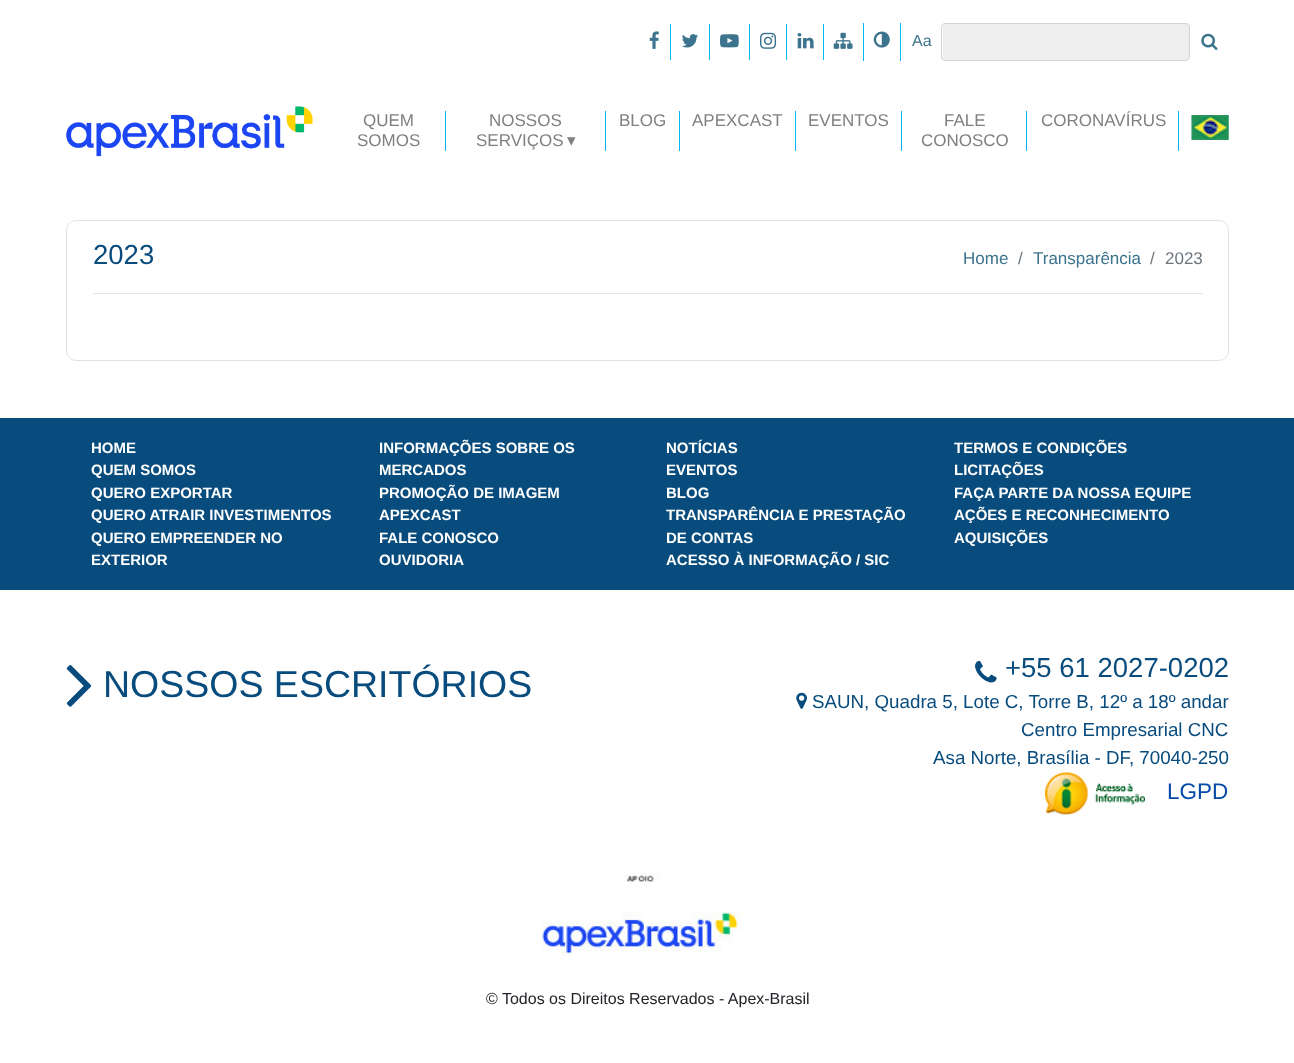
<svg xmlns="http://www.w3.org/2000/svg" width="1294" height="1063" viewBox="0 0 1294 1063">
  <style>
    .t1 { font: 16px Liberation Sans; fill: #3c738d; }
    .t2 { font: 17px Liberation Sans; fill: #808080; }
    .t3 { font: 17px DejaVu Sans; fill: #808080; }
    .t4 { font: 27.5px Liberation Sans; fill: #084b7d; }
    .t5 { font: 17px Liberation Sans; fill: #3c738d; }
    .t6 { font: 17px Liberation Sans; fill: #6c757d; }
    .t7 { font: bold 15px Liberation Sans; fill: #fff; }
    .t8 { font: 37.5px Liberation Sans; fill: #084b7d; }
    .t9 { font: 18.75px Liberation Sans; fill: #084b7d; }
    .t10 { font: 22.5px Liberation Sans; fill: #084ba7; }
    .t11 { font: 16px Liberation Sans; fill: #212529; }
  </style>
  <rect width="100%" height="100%" fill="#fff"/>
  <image x="649" y="31" width="10" height="18" href="images/1.png"/>
  <rect x="670" y="24" width="1" height="36" fill="#00b9f2"/>
  <image x="682" y="34" width="16" height="14" href="images/2.png"/>
  <rect x="709" y="24" width="1" height="36" fill="#00b9f2"/>
  <image x="720" y="34" width="19" height="14" href="images/3.png"/>
  <rect x="749" y="24" width="1" height="36" fill="#00b9f2"/>
  <image x="760" y="32" width="17" height="17" href="images/4.png"/>
  <rect x="786" y="24" width="1" height="36" fill="#00b9f2"/>
  <image x="797" y="33" width="17" height="16" href="images/5.png"/>
  <rect x="823" y="24" width="1" height="36" fill="#00b9f2"/>
  <image x="833" y="32" width="20" height="17" href="images/6.png"/>
  <rect x="863" y="23" width="1" height="38" fill="#00b9f2"/>
  <image x="873" y="31" width="17" height="17" href="images/7.png"/>
  <rect x="900" y="23" width="1" height="38" fill="#00b9f2"/>
  <text x="912" y="46" class="t1">Aa</text>
  <rect x="943" y="24" width="246" height="36" rx="2.5" fill="#eee"/>
  <rect x="941.5" y="23.5" width="248" height="37" rx="3.5" fill="none" stroke="#ced4da"/>
  <image x="1201" y="33" width="17" height="17" href="images/8.png"/>
  <image x="66" y="106" width="247" height="51" href="images/9.png"/>
  <text x="363" y="126" class="t2">QUEM</text>
  <text x="357" y="146" class="t2">SOMOS</text>
  <rect x="445" y="111" width="1" height="40" fill="#00b9f2"/>
  <text x="489" y="126" class="t2">NOSSOS</text>
  <text x="476" y="146" class="t2">SERVIÇOS</text>
  <text x="567" y="146" class="t3">▾</text>
  <rect x="605" y="111" width="1" height="40" fill="#00b9f2"/>
  <text x="619" y="126" class="t2">BLOG</text>
  <rect x="679" y="111" width="1" height="40" fill="#00b9f2"/>
  <text x="692" y="126" class="t2">APEXCAST</text>
  <rect x="795" y="111" width="1" height="40" fill="#00b9f2"/>
  <text x="808" y="126" class="t2">EVENTOS</text>
  <rect x="901" y="111" width="1" height="40" fill="#00b9f2"/>
  <text x="944" y="126" class="t2">FALE</text>
  <text x="921" y="146" class="t2">CONOSCO</text>
  <rect x="1178" y="111" width="1" height="40" fill="#00b9f2"/>
  <rect x="1026" y="111" width="1" height="40" fill="#00b9f2"/>
  <text x="1041" y="126" class="t2">CORONAVÍRUS</text>
  <image x="1191" y="115" width="38" height="25" href="images/10.png"/>
  <rect x="66.5" y="220.5" width="1162" height="140" rx="9.5" fill="none" stroke="#dee2e6"/>
  <text x="93" y="264" class="t4">2023</text>
  <text x="963" y="264" class="t5">Home</text>
  <text x="1018" y="264" class="t6">/</text>
  <text x="1033" y="264" class="t5">Transparência</text>
  <text x="1150" y="264" class="t6">/</text>
  <text x="1165" y="264" class="t6">2023</text>
  <rect x="93" y="293" width="1110" height="1" fill="#e6e6e6"/>
  <rect x="0" y="418" width="1294" height="172" fill="#084b7d"/>
  <text x="91" y="453" class="t7">HOME</text>
  <text x="91" y="475" class="t7">QUEM SOMOS</text>
  <text x="91" y="498" class="t7">QUERO EXPORTAR</text>
  <text x="91" y="520" class="t7">QUERO ATRAIR INVESTIMENTOS</text>
  <text x="91" y="543" class="t7">QUERO EMPREENDER NO</text>
  <text x="91" y="565" class="t7">EXTERIOR</text>
  <text x="379" y="453" class="t7">INFORMAÇÕES SOBRE OS</text>
  <text x="379" y="475" class="t7">MERCADOS</text>
  <text x="379" y="498" class="t7">PROMOÇÃO DE IMAGEM</text>
  <text x="379" y="520" class="t7">APEXCAST</text>
  <text x="379" y="543" class="t7">FALE CONOSCO</text>
  <text x="379" y="565" class="t7">OUVIDORIA</text>
  <text x="666" y="453" class="t7">NOTÍCIAS</text>
  <text x="666" y="475" class="t7">EVENTOS</text>
  <text x="666" y="498" class="t7">BLOG</text>
  <text x="666" y="520" class="t7">TRANSPARÊNCIA E PRESTAÇÃO</text>
  <text x="666" y="543" class="t7">DE CONTAS</text>
  <text x="666" y="565" class="t7">ACESSO À INFORMAÇÃO / SIC</text>
  <text x="954" y="453" class="t7">TERMOS E CONDIÇÕES</text>
  <text x="954" y="475" class="t7">LICITAÇÕES</text>
  <text x="954" y="498" class="t7">FAÇA PARTE DA NOSSA EQUIPE</text>
  <text x="954" y="520" class="t7">AÇÕES E RECONHECIMENTO</text>
  <text x="954" y="543" class="t7">AQUISIÇÕES</text>
  <image x="66" y="665" width="26" height="42" href="images/11.png"/>
  <text x="103" y="697" class="t8">NOSSOS ESCRITÓRIOS</text>
  <image x="975" y="660" width="22" height="23" href="images/12.png"/>
  <text x="1005" y="677" class="t4">+55 61 2027-0202</text>
  <image x="796" y="692" width="11" height="17" href="images/13.png"/>
  <text x="812" y="708" class="t9">SAUN, Quadra 5, Lote C, Torre B, 12º a 18º andar</text>
  <text x="1021" y="736" class="t9">Centro Empresarial CNC</text>
  <text x="933" y="764" class="t9">Asa Norte, Brasília - DF, 70040-250</text>
  <image x="1045" y="772" width="100" height="43" href="images/14.png"/>
  <text x="1167" y="799" class="t10">LGPD</text>
  <image x="542" y="871" width="201" height="85" href="images/15.png"/>
  <text x="486" y="1004" class="t11">© Todos os Direitos Reservados - Apex-Brasil</text>
</svg>
